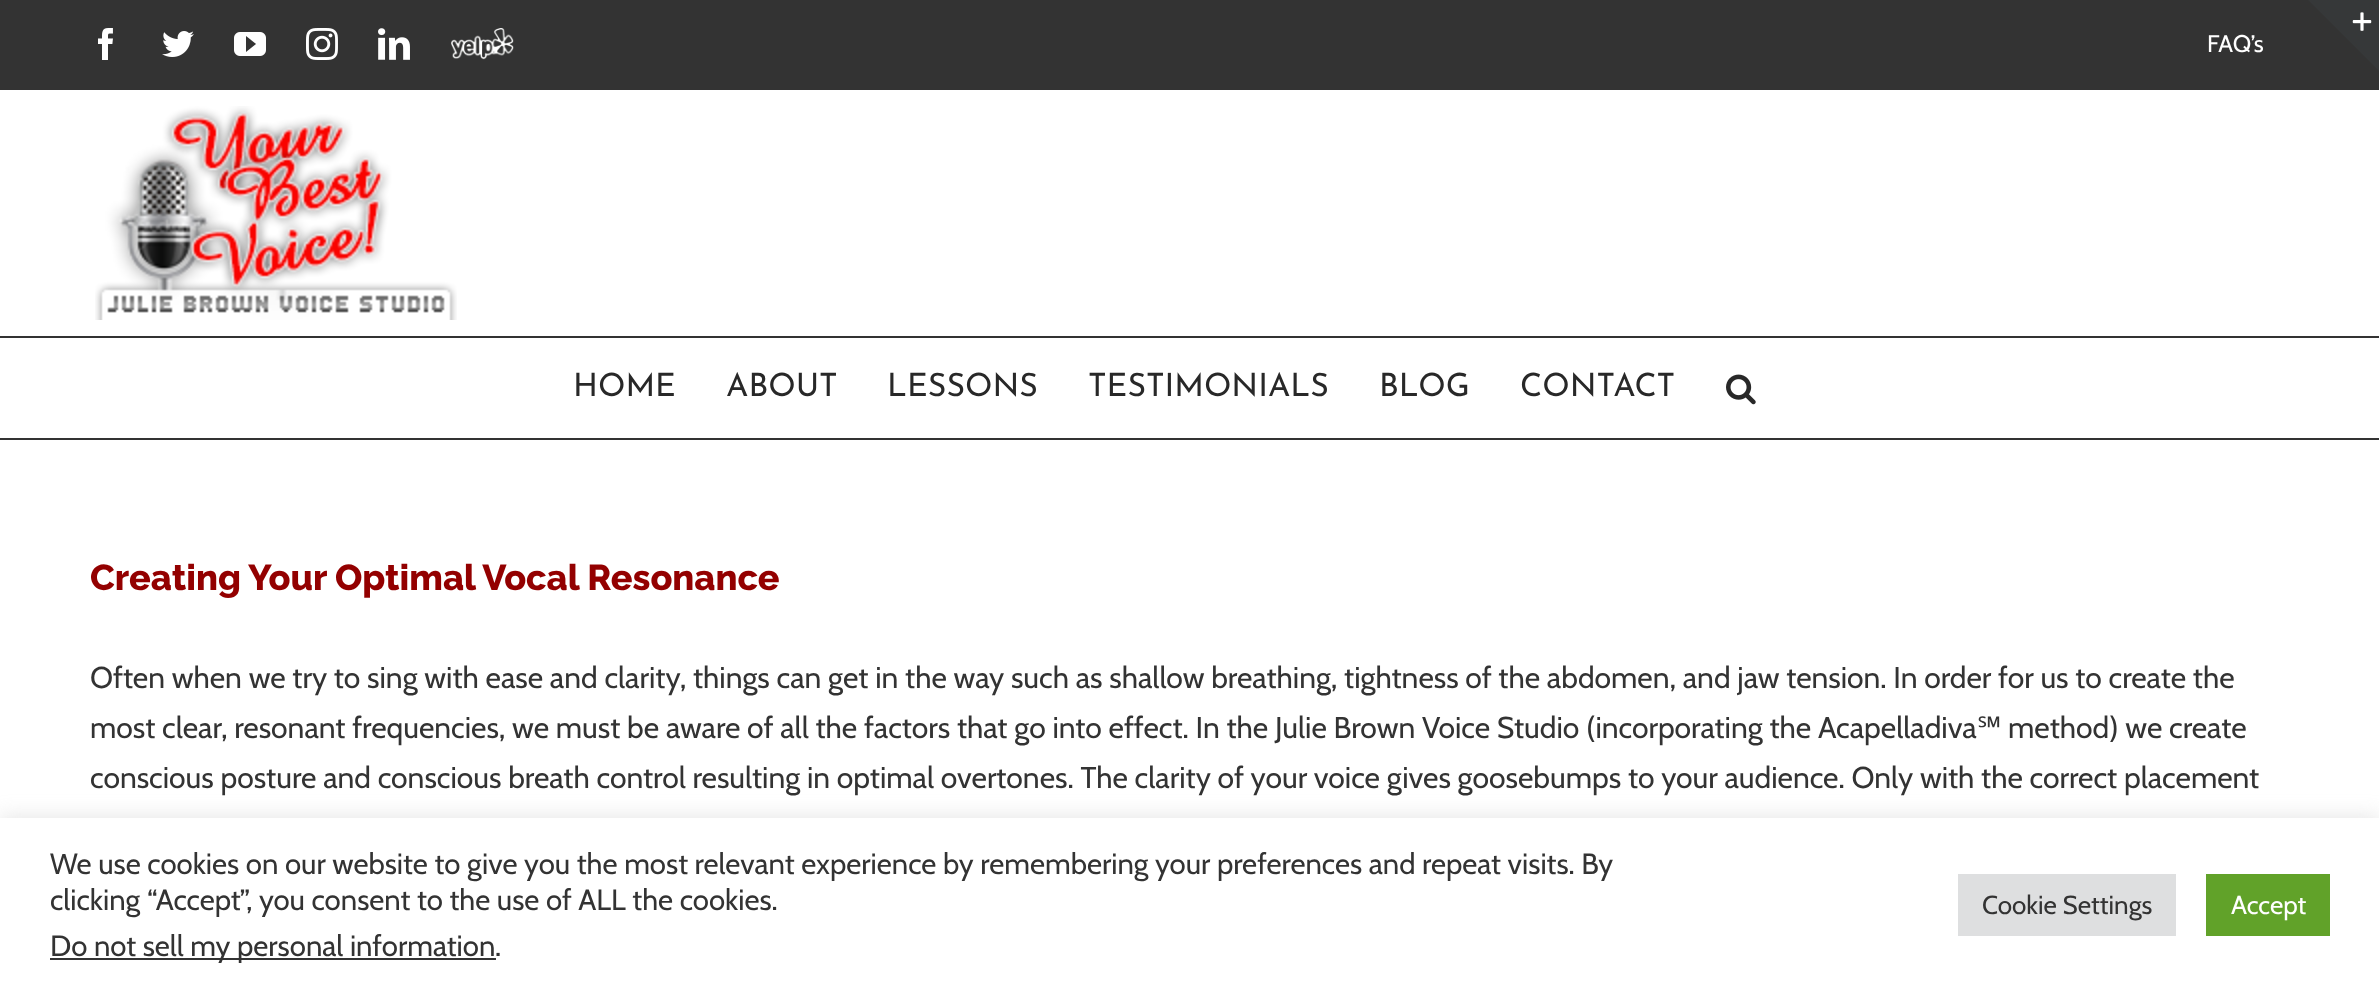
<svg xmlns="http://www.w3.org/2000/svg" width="2379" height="992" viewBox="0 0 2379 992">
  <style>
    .t1 { font: 24px Cabin; fill: #fff; }
    .t2 { font: 100 32px Josefin Sans; fill: #282828; }
    .t3 { font: 100 36px Raleway; fill: #930000; }
    .t4 { font: 30px Cabin; fill: #333; }
    .t5 { font: 30px Noto Sans; fill: #333; }
    .t6 { font: 29.33px Cabin; fill: #333; }
    .t7 { font: 26px Cabin; fill: #333; }
    .t8 { font: 26px Cabin; fill: #fff; }
  </style>
  <rect width="100%" height="100%" fill="#fff"/>
  <rect x="0" y="0" width="2379" height="90" fill="#333"/>
  <image x="98" y="28" width="15" height="32" href="images/1.png"/>
  <image x="162" y="31" width="32" height="26" href="images/2.png"/>
  <image x="234" y="32" width="32" height="24" href="images/3.png"/>
  <image x="306" y="28" width="32" height="32" href="images/4.png"/>
  <image x="378" y="28" width="32" height="32" href="images/5.png"/>
  <image x="451" y="28" width="63" height="32" href="images/6.png"/>
  <text x="2207" y="52" class="t1">FAQ’s</text>
  <rect x="0" y="336" width="2379" height="2" fill="#333"/>
  <image x="95" y="106" width="362" height="214" href="images/7.png"/>
  <rect x="0" y="438" width="2379" height="2" fill="#333"/>
  <text x="573" y="396" class="t2">HOME</text>
  <text x="726" y="396" class="t2">ABOUT</text>
  <text x="887" y="396" class="t2">LESSONS</text>
  <text x="1088" y="396" class="t2">TESTIMONIALS</text>
  <text x="1379" y="396" class="t2">BLOG</text>
  <text x="1520" y="396" class="t2">CONTACT</text>
  <image x="1726" y="374" width="30" height="31" href="images/8.png"/>
  <path d="M2308 0H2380V72Z" fill="#363839"/>
  <image x="2352" y="12" width="20" height="19" href="images/9.png"/>
  <text x="90" y="590" class="t3">Creating Your Optimal Vocal Resonance</text>
  <text x="90" y="688" class="t4">Often when we try to sing with ease and clarity, things can get in the way such as shallow breathing, tightness of the abdomen, and jaw tension. In order for us to create the</text>
  <text x="90" y="738" class="t4">most clear, resonant frequencies, we must be aware of all the factors that go into effect. In the Julie Brown Voice Studio (incorporating the Acapelladiva</text>
  <text x="1977" y="738" class="t5">℠</text>
  <text x="2008" y="738" class="t4">method) we create</text>
  <text x="90" y="788" class="t4">conscious posture and conscious breath control resulting in optimal overtones. The clarity of your voice gives goosebumps to your audience. Only with the correct placement</text>
  <rect x="0" y="816" width="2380" height="174" fill="#acabab4d" filter="blur(10px)"/>
  <rect x="0" y="818" width="2379" height="174" fill="#fff"/>
  <text x="50" y="874" class="t6">We use cookies on our website to give you the most relevant experience by remembering your preferences and repeat visits. By</text>
  <text x="50" y="910" class="t6">clicking “Accept”, you consent to the use of ALL the cookies.</text>
  <rect x="50" y="958" width="446" height="2" fill="#333"/>
  <text x="50" y="956" class="t6">Do not sell my personal information</text>
  <text x="495" y="956" class="t6">.</text>
  <rect x="1958" y="874" width="218" height="62" fill="#dedfe0"/>
  <text x="1982" y="914" class="t7">Cookie Settings</text>
  <rect x="2206" y="874" width="124" height="62" fill="#61a229"/>
  <text x="2231" y="914" class="t8">Accept</text>
</svg>
